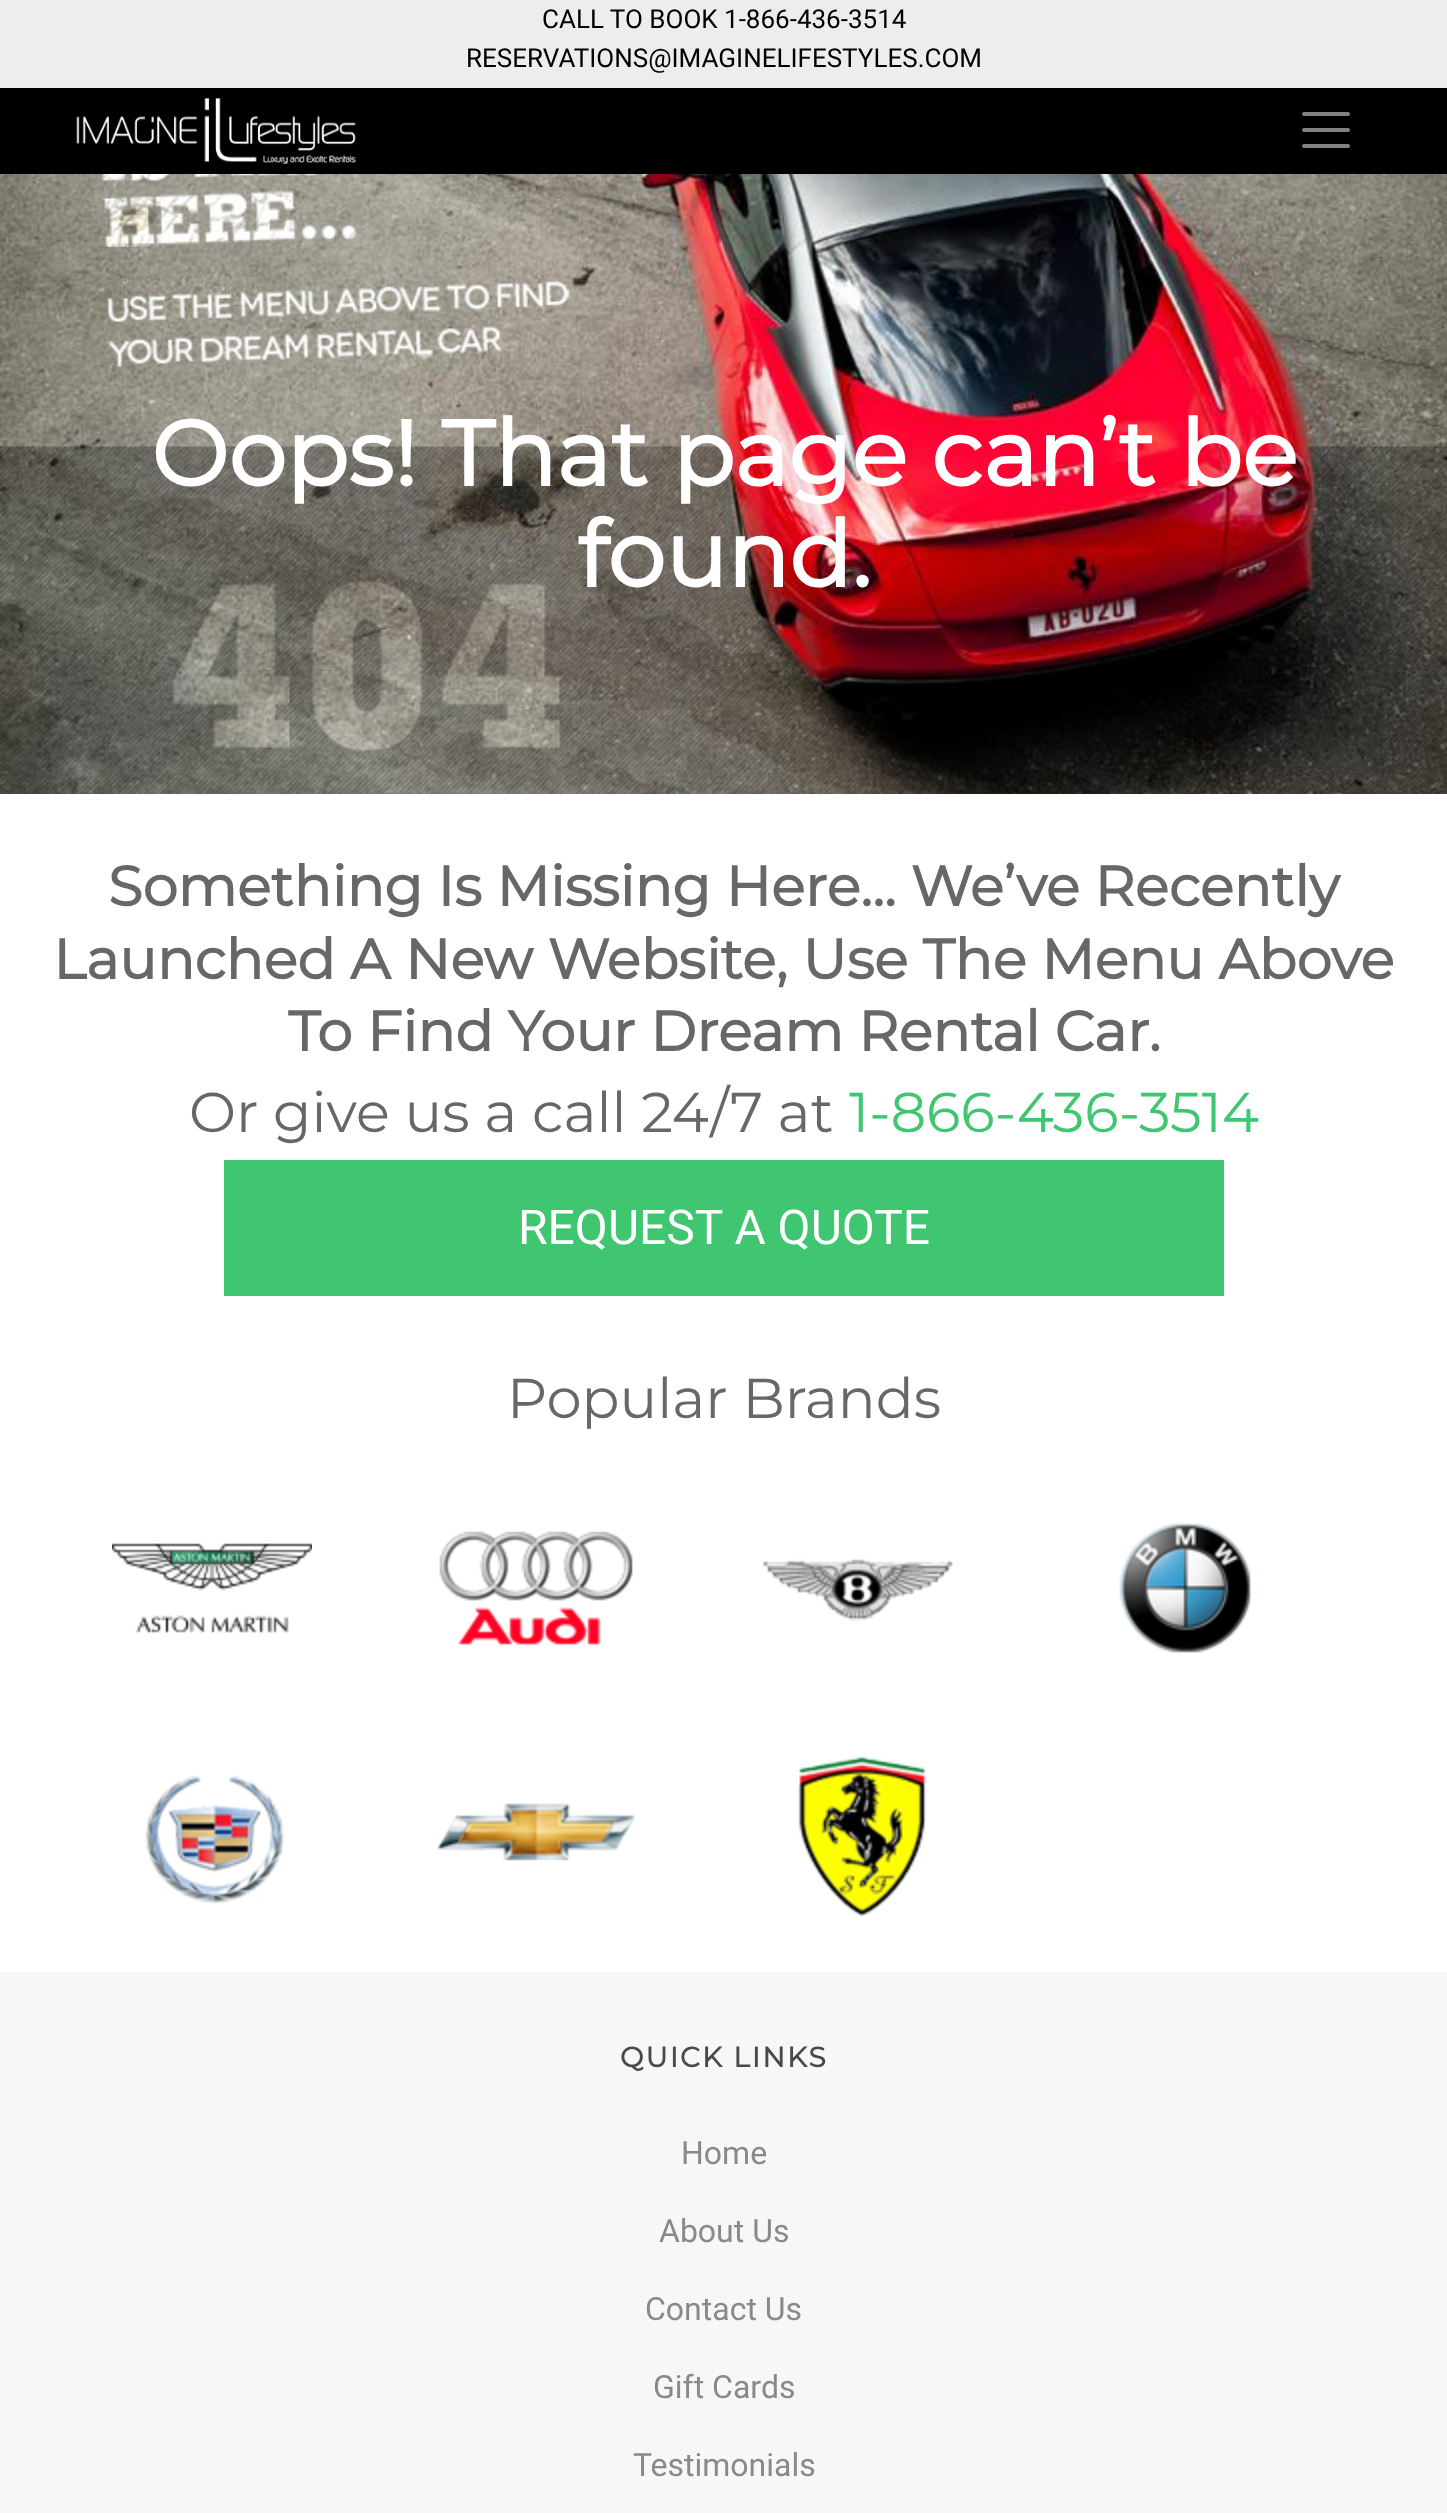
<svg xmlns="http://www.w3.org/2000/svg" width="1447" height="2513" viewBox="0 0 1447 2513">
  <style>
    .t1 { font: 26px Roboto; fill: #000; }
    .t2 { font: bold 92px Montserrat; fill: #fff; }
    .t3 { font: bold 56px Montserrat; fill: #676767; }
    .t4 { font: 100 56px Montserrat; fill: #676767; }
    .t5 { font: 100 56px Montserrat; fill: #40c671; }
    .t6 { font: 48px Roboto; fill: #fff; }
    .t7 { font: bold 28px Montserrat; letter-spacing: 2px; fill: #494949; }
    .t8 { font: 32px Roboto; fill: #898989; }
  </style>
  <rect width="100%" height="100%" fill="#fff"/>
  <rect x="0" y="88" width="1447" height="86" fill="#000"/>
  <rect x="0" y="0" width="1447" height="88" fill="#ededed"/>
  <text x="542" y="28" class="t1">CALL TO BOOK 1-866-436-3514</text>
  <text x="466" y="67" class="t1">RESERVATIONS@IMAGINELIFESTYLES.COM</text>
  <image x="76" y="98" width="280" height="66" href="images/1.png"/>
  <path d="M1304 114H1348M1304 130H1348M1304 146H1348" fill="none" stroke="#808080" stroke-width="4" stroke-linecap="round"/>
  <image x="0" y="174" width="1447" height="620" href="images/2.png"/>
  <text x="151" y="486" class="t2">Oops! That page can’t be</text>
  <text x="577" y="587" class="t2">found.</text>
  <text x="108" y="906" class="t3">Something Is Missing Here... We’ve Recently</text>
  <text x="53" y="979" class="t3">Launched A New Website, Use The Menu Above</text>
  <text x="288" y="1051" class="t3">To Find Your Dream Rental Car.</text>
  <text x="189" y="1132" class="t4">Or give us a call 24/7 at</text>
  <text x="849" y="1132" class="t5">1-866-436-3514</text>
  <rect x="224" y="1160" width="1000" height="136" fill="#40c671"/>
  <text x="518" y="1244" class="t6">REQUEST A QUOTE</text>
  <text x="507" y="1418" class="t4">Popular Brands</text>
  <image x="112" y="1543" width="200" height="90" href="images/3.png"/>
  <image x="439" y="1531" width="194" height="114" href="images/4.png"/>
  <image x="762" y="1559" width="191" height="62" href="images/5.png"/>
  <image x="1119" y="1523" width="132" height="130" href="images/6.png"/>
  <image x="145" y="1775" width="140" height="129" href="images/7.png"/>
  <image x="437" y="1803" width="198" height="58" href="images/8.png"/>
  <image x="797" y="1756" width="130" height="161" href="images/9.png"/>
  <rect x="0" y="1972" width="1447" height="541" fill="#f7f7f8"/>
  <text x="620" y="2067" class="t7">QUICK LINKS</text>
  <text x="681" y="2164" class="t8">Home</text>
  <text x="659" y="2242" class="t8">About Us</text>
  <text x="645" y="2320" class="t8">Contact Us</text>
  <text x="653" y="2398" class="t8">Gift Cards</text>
  <text x="633" y="2476" class="t8">Testimonials</text>
</svg>
